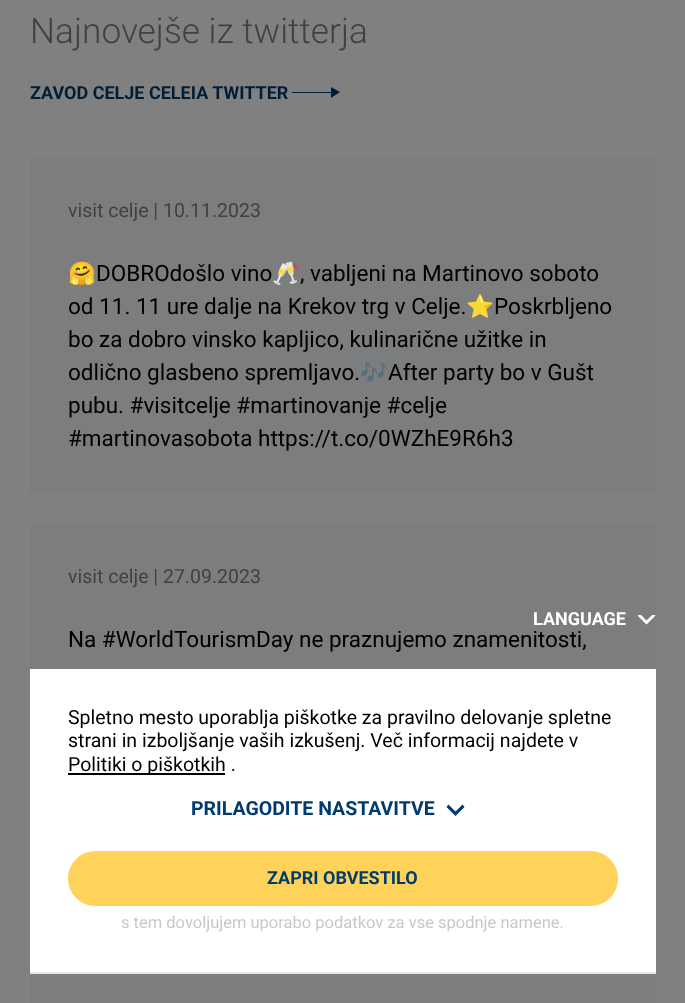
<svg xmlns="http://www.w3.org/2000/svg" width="685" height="1003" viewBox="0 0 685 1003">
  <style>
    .t1 { font: 300 35.25px Roboto; fill: #414141; }
    .t2 { font: bold 18px Roboto; fill: #001e37; }
    .t3 { font: 19.5px Roboto; fill: #414141; }
    .t4 { font: 22.5px Noto Color Emoji; fill: #000; }
    .t5 { font: 22.5px Roboto; fill: #000; }
    .t6 { font: bold 18px Roboto; fill: #fff; }
    .t7 { font: 19.5px Roboto; fill: #000; }
    .t8 { font: bold 19.5px Roboto; fill: #003b6e; }
    .t9 { font: bold 18px Roboto; fill: #003b6e; }
    .t10 { font: 16.5px Roboto; fill: #c8c8c8; }
  </style>
  <defs>
    <clipPath id="clip1"><rect x="638" y="615" width="18" height="11"/></clipPath>
  </defs>
  <rect width="100%" height="100%" fill="#808080"/>
  <text x="30" y="43" class="t1">Najnovejše iz twitterja</text>
  <text x="30" y="99" class="t2">ZAVOD CELJE CELEIA TWITTER</text>
  <path d="M340 92L331 87V92H292V93H331V98Z" fill="#001e37"/>
  <rect x="30" y="158" width="626" height="336" fill="#7c7d7e"/>
  <text x="68" y="217" class="t3">visit celje | 10.11.2023</text>
  <text x="68" y="281" class="t4">🤗</text>
  <text x="96" y="281" class="t5">DOBROdošlo vino</text>
  <text x="272" y="281" class="t4">🥂</text>
  <text x="300" y="281" class="t5">, vabljeni na Martinovo soboto</text>
  <text x="68" y="314" class="t5">od 11. 11 ure dalje na Krekov trg v Celje.</text>
  <text x="466" y="314" class="t4">⭐</text>
  <text x="494" y="314" class="t5">Poskrbljeno</text>
  <text x="68" y="347" class="t5">bo za dobro vinsko kapljico, kulinarične užitke in</text>
  <text x="68" y="380" class="t5">odlično glasbeno spremljavo.</text>
  <text x="360" y="380" class="t4">🎶</text>
  <text x="388" y="380" class="t5">After party bo v Gušt</text>
  <text x="68" y="413" class="t5">pubu. #visitcelje #martinovanje #celje</text>
  <text x="68" y="446" class="t5">#martinovasobota https://t.co/0WZhE9R6h3</text>
  <rect x="30" y="524" width="626" height="145" fill="#7c7d7e"/>
  <text x="68" y="583" class="t3">visit celje | 27.09.2023</text>
  <text x="68" y="647" class="t5">Na #WorldTourismDay ne praznujemo znamenitosti,</text>
  <rect x="30" y="974" width="626" height="29" fill="#7c7d7e"/>
  <text x="533" y="625" class="t6">LANGUAGE</text>
  <g clip-path="url(#clip1)">
    <path d="M653.5 613.5L646.5 620.5L639.5 613.5L637.5 615.5L646.5 624.5L655.5 615.5Z" fill="#fff"/>
  </g>
  <rect x="30" y="669" width="626" height="303" fill="#fff"/>
  <text x="68" y="724" class="t7">Spletno mesto uporablja piškotke za pravilno delovanje spletne</text>
  <text x="68" y="747" class="t7">strani in izboljšanje vaših izkušenj. Več informacij najdete v</text>
  <rect x="68" y="773" width="157" height="2" fill="#000"/>
  <text x="68" y="771" class="t7">Politiki o piškotkih .</text>
  <text x="191" y="815" class="t8">PRILAGODITE NASTAVITVE</text>
  <path d="M462.5 804.5L455.5 811.5L448.5 804.5L446.5 807L455.5 816L464.5 807Z" fill="#003b6e"/>
  <rect x="69" y="852" width="548" height="53" rx="26.5" fill="#ffd359" stroke="#ffd359" stroke-width="2"/>
  <text x="267" y="884" class="t9">ZAPRI OBVESTILO</text>
  <text x="121" y="928" class="t10">s tem dovoljujem uporabo podatkov za vse spodnje namene.</text>
  <rect x="30" y="972" width="626" height="2" fill="#e6e6e6"/>
</svg>
